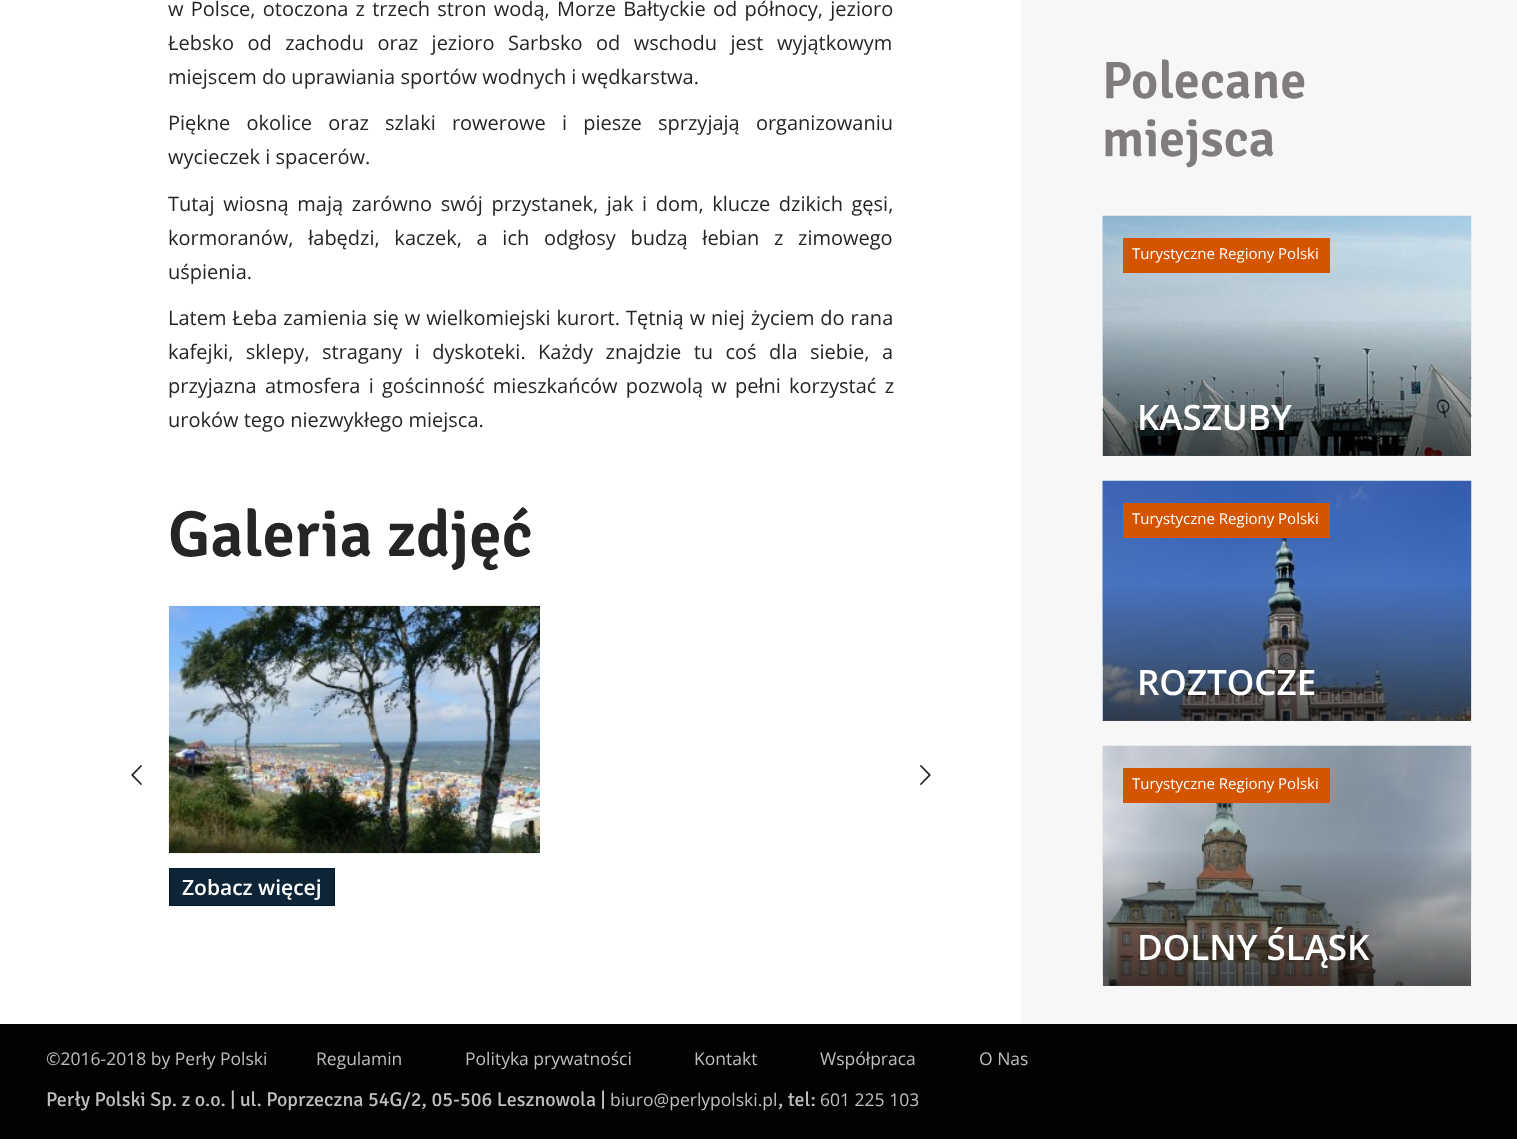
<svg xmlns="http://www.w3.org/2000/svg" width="1517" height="1139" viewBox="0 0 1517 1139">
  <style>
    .t1 { font: 20px Open Sans; fill: #262525; }
    .t2 { font: 600 65px Signika; fill: #262525; }
    .t3 { font: 600 21px Open Sans; fill: #fff; }
    .t4 { font: 600 52.5px Signika; fill: #807c7c; }
    .t5 { font: 15px Open Sans; fill: #fff; }
    .t6 { font: 600 35px Open Sans; fill: #fff; }
    .t7 { font: 17.5px Open Sans; fill: #bfbfbf; }
    .t8 { font: 20px Signika; fill: #bfbfbf; }
  </style>
  <defs>
    <linearGradient id="g1" gradientUnits="userSpaceOnUse" x1="1287" y1="216" x2="1287" y2="456"><stop offset="0" stop-color="#000" stop-opacity="0"/><stop offset="0.42" stop-color="#000" stop-opacity="0"/><stop offset="1" stop-color="#000" stop-opacity="0.65"/></linearGradient>
    <linearGradient id="g2" gradientUnits="userSpaceOnUse" x1="1287" y1="481" x2="1287" y2="721"><stop offset="0" stop-color="#000" stop-opacity="0"/><stop offset="0.42" stop-color="#000" stop-opacity="0"/><stop offset="1" stop-color="#000" stop-opacity="0.65"/></linearGradient>
    <linearGradient id="g3" gradientUnits="userSpaceOnUse" x1="1287" y1="746" x2="1287" y2="986"><stop offset="0" stop-color="#000" stop-opacity="0"/><stop offset="0.42" stop-color="#000" stop-opacity="0"/><stop offset="1" stop-color="#000" stop-opacity="0.65"/></linearGradient>
  </defs>
  <rect width="100%" height="100%" fill="#fff"/>
  <text x="168" y="16" word-spacing="2.1" class="t1">w Polsce, otoczona z trzech stron wodą, Morze Bałtyckie od północy, jezioro</text>
  <text x="168" y="50" word-spacing="8.25" class="t1">Łebsko od zachodu oraz jezioro Sarbsko od wschodu jest wyjątkowym</text>
  <text x="168" y="84" class="t1">miejscem do uprawiania sportów wodnych i wędkarstwa.</text>
  <text x="168" y="130" word-spacing="11" class="t1">Piękne okolice oraz szlaki rowerowe i piesze sprzyjają organizowaniu</text>
  <text x="168" y="164" class="t1">wycieczek i spacerów.</text>
  <text x="168" y="211" word-spacing="3.4" class="t1">Tutaj wiosną mają zarówno swój przystanek, jak i dom, klucze dzikich gęsi,</text>
  <text x="168" y="245" word-spacing="9.5" class="t1">kormoranów, łabędzi, kaczek, a ich odgłosy budzą łebian z zimowego</text>
  <text x="168" y="279" class="t1">uśpienia.</text>
  <text x="168" y="325" word-spacing="0.75" class="t1">Latem Łeba zamienia się w wielkomiejski kurort. Tętnią w niej życiem do rana</text>
  <text x="168" y="359" word-spacing="7.25" class="t1">kafejki, sklepy, stragany i dyskoteki. Każdy znajdzie tu coś dla siebie, a</text>
  <text x="168" y="393" word-spacing="3" class="t1">przyjazna atmosfera i gościnność mieszkańców pozwolą w pełni korzystać z</text>
  <text x="168" y="427" class="t1">uroków tego niezwykłego miejsca.</text>
  <text x="168" y="556" class="t2">Galeria zdjęć</text>
  <image x="168" y="605" width="372" height="249" href="images/1.png"/>
  <image x="131" y="765" width="11" height="20" href="images/2.png"/>
  <image x="920" y="765" width="11" height="20" href="images/3.png"/>
  <rect x="169.5" y="868.5" width="165" height="37" fill="#0d2536" stroke="#011b2c"/>
  <text x="182" y="895" class="t3">Zobacz więcej</text>
  <rect x="1021" y="0" width="496" height="1024" fill="#f7f7f7"/>
  <text x="1102" y="98" class="t4">Polecane</text>
  <text x="1102" y="156" class="t4">miejsca</text>
  <image x="1102" y="215" width="370" height="241" href="images/4.png"/>
  <rect x="1123" y="238" width="207" height="35" fill="#d55400"/>
  <text x="1132" y="259" class="t5">Turystyczne Regiony Polski</text>
  <rect x="1103" y="321" width="368" height="135" fill="url(#g1)"/>
  <text x="1137" y="430" class="t6">KASZUBY</text>
  <image x="1102" y="480" width="370" height="241" href="images/5.png"/>
  <rect x="1123" y="503" width="207" height="35" fill="#d55400"/>
  <text x="1132" y="524" class="t5">Turystyczne Regiony Polski</text>
  <rect x="1103" y="586" width="368" height="135" fill="url(#g2)"/>
  <text x="1137" y="695" class="t6">ROZTOCZE</text>
  <image x="1102" y="745" width="370" height="241" href="images/6.png"/>
  <rect x="1123" y="768" width="207" height="35" fill="#d55400"/>
  <text x="1132" y="789" class="t5">Turystyczne Regiony Polski</text>
  <rect x="1103" y="851" width="368" height="135" fill="url(#g3)"/>
  <text x="1137" y="960" class="t6">DOLNY ŚLĄSK</text>
  <rect x="0" y="1024" width="1517" height="115" fill="#030202"/>
  <text x="46" y="1065" class="t7">©2016-2018 by Perły Polski</text>
  <text x="316" y="1065" class="t7">Regulamin</text>
  <text x="465" y="1065" class="t7">Polityka prywatności</text>
  <text x="694" y="1065" class="t7">Kontakt</text>
  <text x="820" y="1065" class="t7">Współpraca</text>
  <text x="979" y="1065" class="t7">O Nas</text>
  <text x="46" y="1106" class="t8">Perły Polski Sp. z o.o. | ul. Poprzeczna 54G/2, 05-506 Lesznowola |</text>
  <text x="610" y="1106" class="t7">biuro@perlypolski.pl</text>
  <text x="778" y="1106" class="t8">, tel:</text>
  <text x="820" y="1106" class="t7">601 225 103</text>
</svg>
